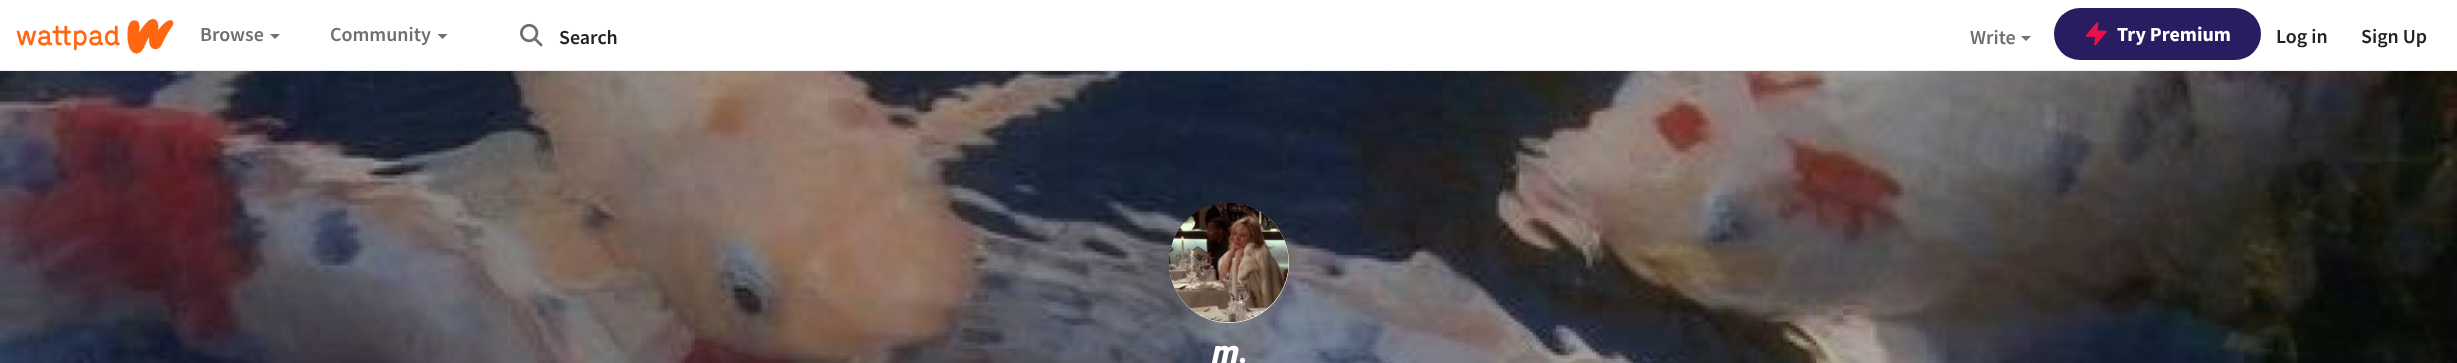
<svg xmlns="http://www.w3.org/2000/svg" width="2457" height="363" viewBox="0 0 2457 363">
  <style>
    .t1 { font: 600 20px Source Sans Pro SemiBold; fill: #6f6f6f; }
    .t2 { font: 600 20px Source Sans Pro SemiBold; fill: #222; }
    .t3 { font: bold 20px Source Sans Pro; fill: #fff; }
    .t4 { font: bold 30px FreeSans; fill: #fff; }
    .t5 { font: bold 30px Source Sans Pro; fill: #fff; }
  </style>
  <rect width="100%" height="100%" fill="#fff"/>
  <rect x="0" y="70" width="2457" height="1" fill="#eee"/>
  <image x="16" y="18" width="158" height="36" href="images/1.png"/>
  <text x="200" y="41" class="t1">Browse</text>
  <path d="M270 34H280L275 39Z" fill="#6f6f6f"/>
  <text x="330" y="41" class="t1">Community</text>
  <path d="M437.5 34H447.5L442.5 39Z" fill="#6f6f6f"/>
  <image x="520" y="23" width="23" height="24" href="images/2.png"/>
  <text x="559" y="44" class="t2">Search</text>
  <text x="1970" y="44" class="t1">Write</text>
  <path d="M2021 36H2031L2026 41Z" fill="#6f6f6f"/>
  <rect x="2054" y="8" width="207" height="52" rx="26" fill="#2a1c60"/>
  <image x="2085" y="22" width="22" height="24" href="images/3.png"/>
  <text x="2117" y="41" class="t3">Try Premium</text>
  <text x="2276" y="43" class="t2">Log in</text>
  <text x="2361" y="43" class="t2">Sign Up</text>
  <image x="0" y="71" width="2457" height="292" href="images/4.png"/>
  <circle cx="1229" cy="263" r="60" fill="#eee"/>
  <image x="1169" y="202" width="120" height="121" href="images/5.png"/>
  <text x="1211" y="363" class="t4">𝒎</text>
  <text x="1238" y="363" class="t5">.</text>
</svg>
